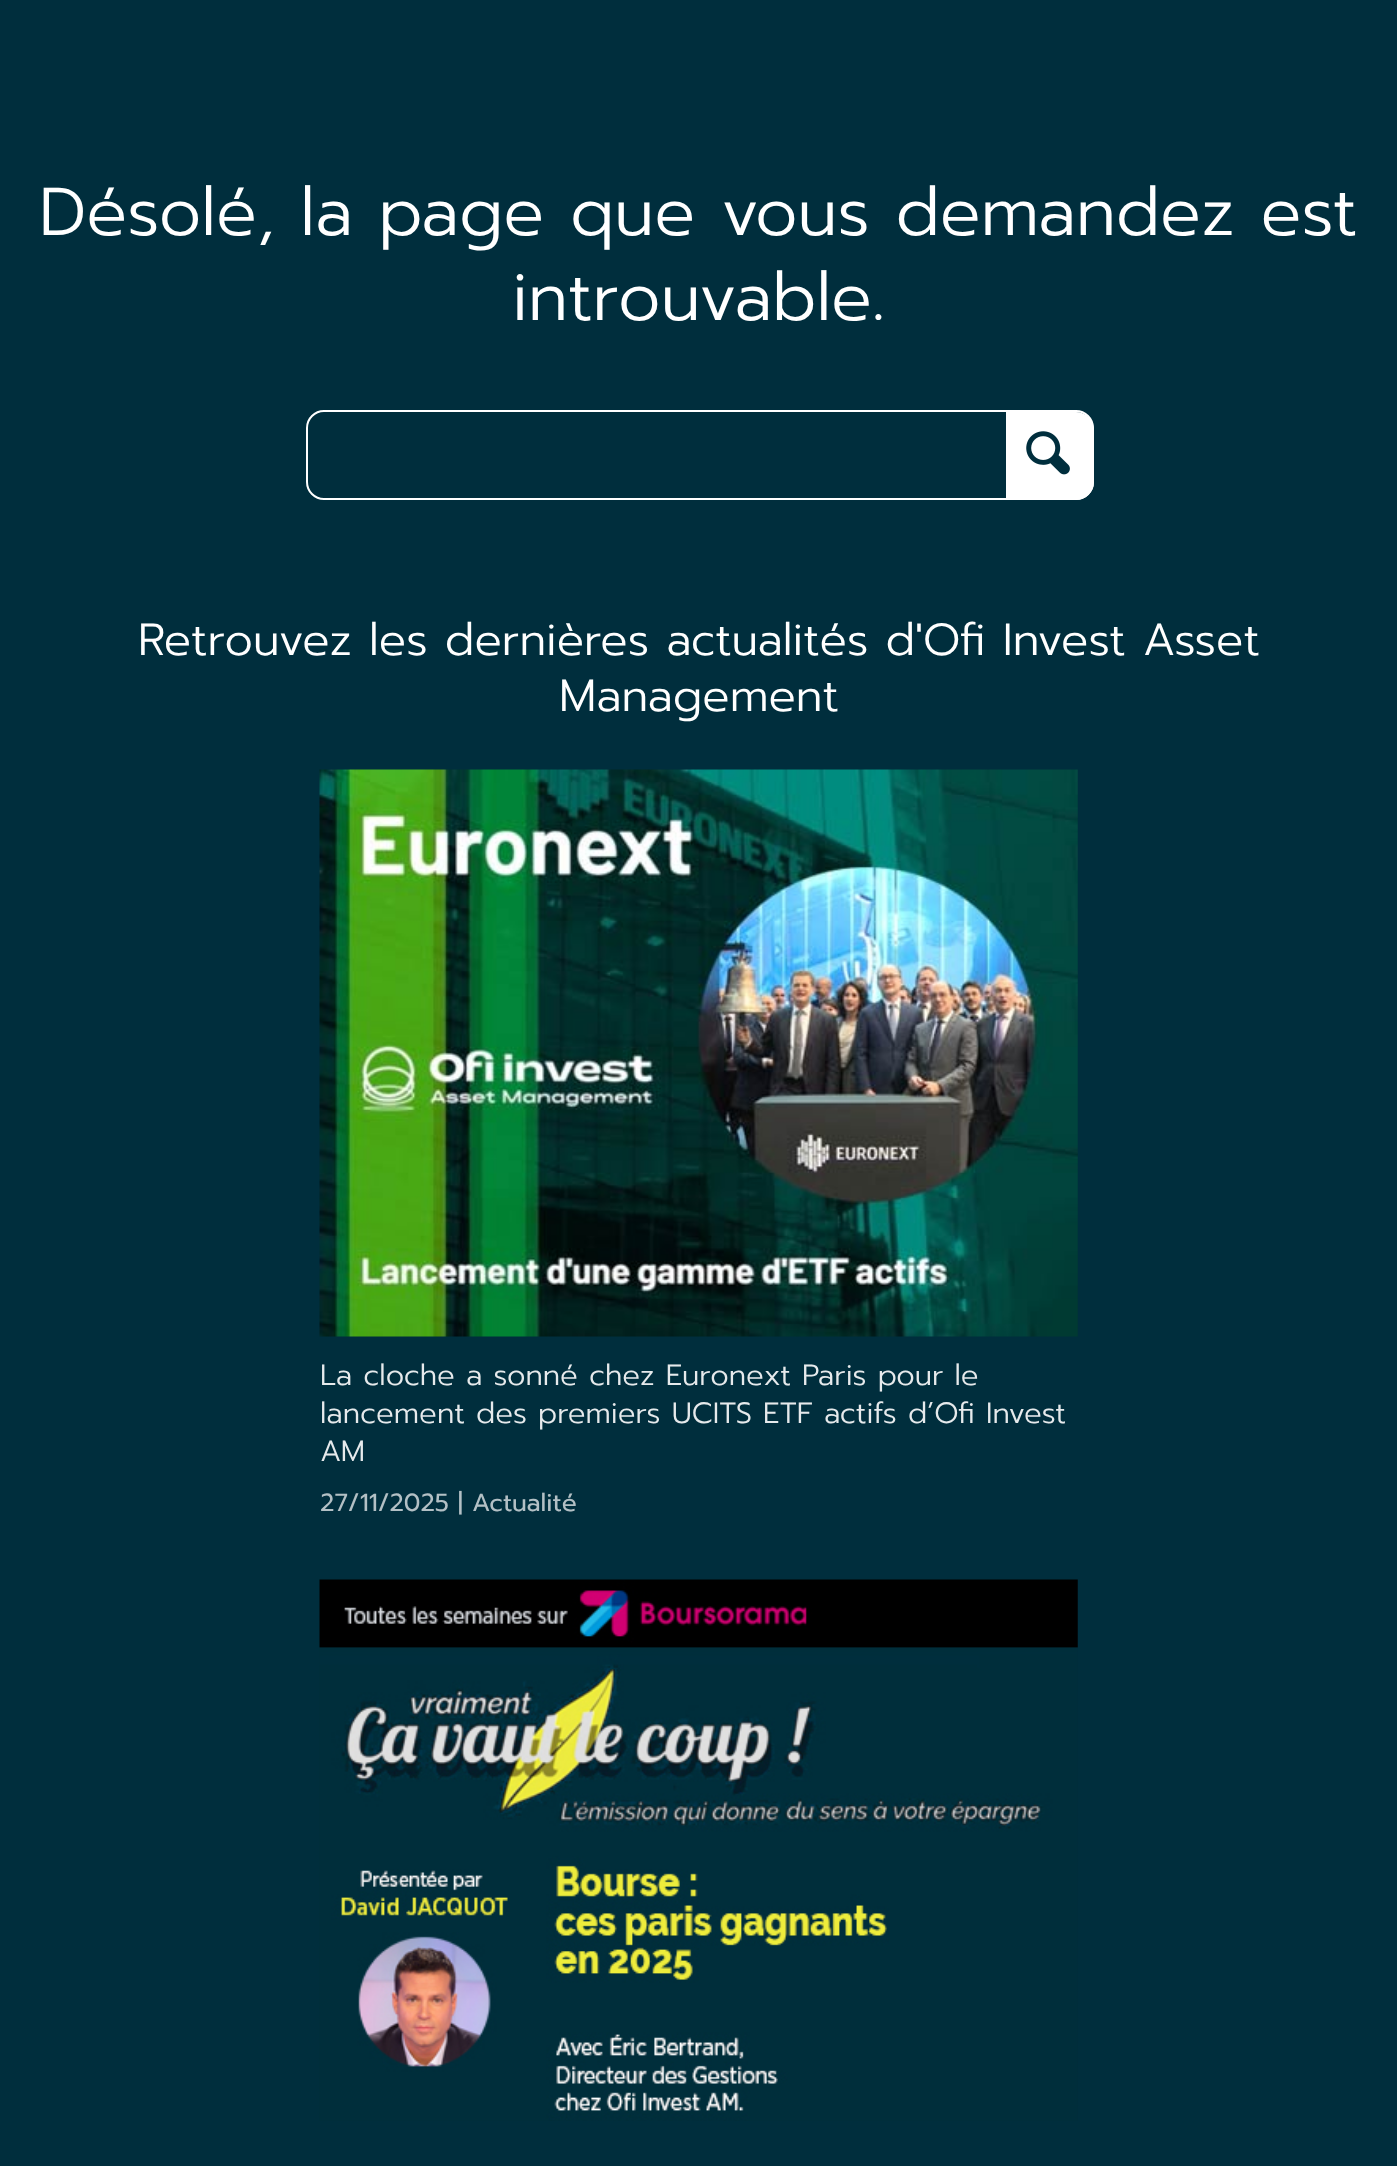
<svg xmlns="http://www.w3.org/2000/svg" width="1397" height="2166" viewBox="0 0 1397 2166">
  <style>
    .t1 { font: 300 67.5px Prompt; fill: #fff; }
    .t2 { font: 300 45px Prompt; fill: #fff; }
    .t3 { font: 300 29.25px Prompt; fill: #e6eaec; }
    .t4 { font: 24.75px Prompt; fill: #b3c0c5; }
  </style>
  <rect width="100%" height="100%" fill="#002e3d"/>
  <text x="39" y="235" class="t1">Désolé, la page que vous demandez est</text>
  <text x="512" y="320" class="t1">introuvable.</text>
  <rect x="307" y="411" width="786" height="88" rx="17" fill="none" stroke="#fff" stroke-width="2"/>
  <path d="M1006 412H1076C1086 412 1094 420 1094 430V482C1094 492 1086 500 1076 500H1006Z" fill="#fff"/>
  <image x="1026" y="431" width="44" height="44" href="images/1.png"/>
  <text x="138" y="655" class="t2">Retrouvez les dernières actualités d'Ofi Invest Asset</text>
  <text x="559" y="711" class="t2">Management</text>
  <image x="319" y="769" width="759" height="568" href="images/2.png"/>
  <text x="320" y="1385" class="t3">La cloche a sonné chez Euronext Paris pour le</text>
  <text x="320" y="1423" class="t3">lancement des premiers UCITS ETF actifs d’Ofi Invest</text>
  <text x="320" y="1461" class="t3">AM</text>
  <text x="320" y="1511" class="t4">27/11/2025 | Actualité</text>
  <image x="319" y="1579" width="759" height="542" href="images/3.png"/>
</svg>
